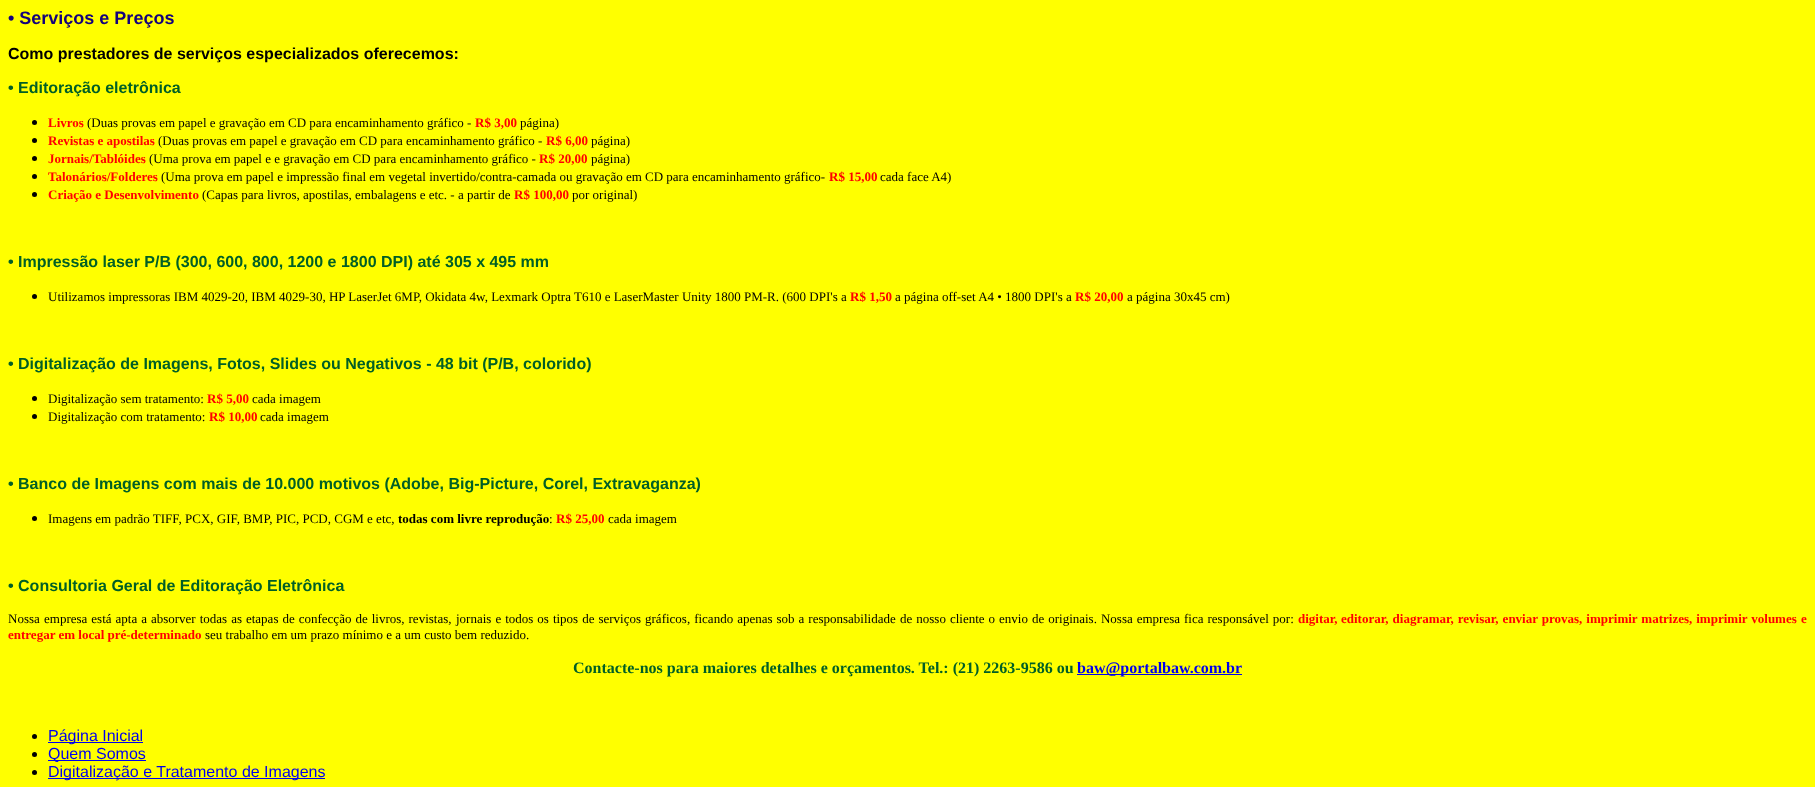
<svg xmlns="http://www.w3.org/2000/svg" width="1815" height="787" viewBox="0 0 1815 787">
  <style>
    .t1 { font: bold 18px Liberation Sans; fill: #13017c; }
    .t2 { font: bold 16px Liberation Sans; fill: #000; }
    .t3 { font: bold 16px Liberation Sans; fill: #005f26; }
    .t4 { font: bold 13px Liberation Serif; fill: #f00; }
    .t5 { font: 13px Liberation Serif; fill: #000; }
    .t6 { font: bold 13px Liberation Serif; fill: #000; }
    .t7 { font: bold 16px Liberation Serif; fill: #005f26; }
    .t8 { font: bold 16px Liberation Serif; fill: #00e; }
    .t9 { font: 16px Liberation Sans; fill: #00e; }
  </style>
  <rect width="100%" height="100%" fill="#ff0"/>
  <text x="8" y="24" class="t1">• Serviços e Preços</text>
  <text x="8" y="59" class="t2">Como prestadores de serviços especializados oferecemos:</text>
  <text x="8" y="93" class="t3">• Editoração eletrônica</text>
  <circle cx="34.5" cy="122.5" r="2.5" fill="#000"/>
  <text x="48" y="127" class="t4">Livros</text>
  <text x="87" y="127" class="t5">(Duas provas em papel e gravação em CD para encaminhamento gráfico -</text>
  <text x="475" y="127" class="t4">R$ 3,00</text>
  <text x="520" y="127" class="t5">página)</text>
  <circle cx="34.5" cy="140.5" r="2.5" fill="#000"/>
  <text x="48" y="145" class="t4">Revistas e apostilas</text>
  <text x="158" y="145" class="t5">(Duas provas em papel e gravação em CD para encaminhamento gráfico -</text>
  <text x="546" y="145" class="t4">R$ 6,00</text>
  <text x="591" y="145" class="t5">página)</text>
  <circle cx="34.5" cy="158.5" r="2.5" fill="#000"/>
  <text x="48" y="163" class="t4">Jornais/Tablóides</text>
  <text x="149" y="163" class="t5">(Uma prova em papel e e gravação em CD para encaminhamento gráfico -</text>
  <text x="539" y="163" class="t4">R$ 20,00</text>
  <text x="591" y="163" class="t5">página)</text>
  <circle cx="34.5" cy="176.5" r="2.5" fill="#000"/>
  <text x="48" y="181" class="t4">Talonários/Folderes</text>
  <text x="161" y="181" class="t5">(Uma prova em papel e impressão final em vegetal invertido/contra-camada ou gravação em CD para encaminhamento gráfico-</text>
  <text x="829" y="181" class="t4">R$ 15,00</text>
  <text x="880" y="181" class="t5">cada face A4)</text>
  <circle cx="34.5" cy="194.5" r="2.5" fill="#000"/>
  <text x="48" y="199" class="t4">Criação e Desenvolvimento</text>
  <text x="202" y="199" class="t5">(Capas para livros, apostilas, embalagens e etc. - a partir de</text>
  <text x="514" y="199" class="t4">R$ 100,00</text>
  <text x="572" y="199" class="t5">por original)</text>
  <text x="8" y="267" class="t3">• Impressão laser P/B (300, 600, 800, 1200 e 1800 DPI) até 305 x 495 mm</text>
  <circle cx="34.5" cy="296.5" r="2.5" fill="#000"/>
  <text x="48" y="301" class="t5">Utilizamos impressoras IBM 4029-20, IBM 4029-30, HP LaserJet 6MP, Okidata 4w, Lexmark Optra T610 e LaserMaster Unity 1800 PM-R. (600 DPI's a</text>
  <text x="850" y="301" class="t4">R$ 1,50</text>
  <text x="895" y="301" class="t5">a página off-set A4 • 1800 DPI's a</text>
  <text x="1075" y="301" class="t4">R$ 20,00</text>
  <text x="1127" y="301" class="t5">a página 30x45 cm)</text>
  <text x="8" y="369" class="t3">• Digitalização de Imagens, Fotos, Slides ou Negativos - 48 bit (P/B, colorido)</text>
  <circle cx="34.5" cy="398.5" r="2.5" fill="#000"/>
  <text x="48" y="403" class="t5">Digitalização sem tratamento:</text>
  <text x="207" y="403" class="t4">R$ 5,00</text>
  <text x="252" y="403" class="t5">cada imagem</text>
  <circle cx="34.5" cy="416.5" r="2.5" fill="#000"/>
  <text x="48" y="421" class="t5">Digitalização com tratamento:</text>
  <text x="209" y="421" class="t4">R$ 10,00</text>
  <text x="260" y="421" class="t5">cada imagem</text>
  <text x="8" y="489" class="t3">• Banco de Imagens com mais de 10.000 motivos (Adobe, Big-Picture, Corel, Extravaganza)</text>
  <circle cx="34.5" cy="518.5" r="2.5" fill="#000"/>
  <text x="48" y="523" class="t5">Imagens em padrão TIFF, PCX, GIF, BMP, PIC, PCD, CGM e etc,</text>
  <text x="398" y="523" class="t6">todas com livre reprodução</text>
  <text x="549" y="523" class="t5">:</text>
  <text x="556" y="523" class="t4">R$ 25,00</text>
  <text x="608" y="523" class="t5">cada imagem</text>
  <text x="8" y="591" class="t3">• Consultoria Geral de Editoração Eletrônica</text>
  <text x="8" y="623" class="t5">Nossa</text>
  <text x="44" y="623" word-spacing="0.75" class="t5">empresa está apta a absorver todas as etapas de confecção de livros, revistas,</text>
  <text x="456" y="623" word-spacing="0.75" class="t5">jornais e todos os tipos de serviços gráficos, ficando apenas sob a responsabilidade</text>
  <text x="900" y="623" word-spacing="0.75" class="t5">de nosso cliente o envio de originais. Nossa empresa fica responsável por:</text>
  <text x="1298" y="623" class="t4">digitar,</text>
  <text x="1341" y="623" word-spacing="0.75" class="t4">editorar, diagramar, revisar, enviar provas, imprimir matrizes, imprimir volumes</text>
  <text x="1801" y="623" class="t4">e</text>
  <text x="8" y="639" class="t4">entregar em local pré-determinado</text>
  <text x="205" y="639" class="t5">seu trabalho em um prazo mínimo e a um custo bem reduzido.</text>
  <text x="573" y="673" class="t7">Contacte-nos para maiores detalhes e orçamentos. Tel.: (21) 2263-9586 ou</text>
  <rect x="1077" y="674" width="165" height="1" fill="#00e"/>
  <text x="1077" y="673" class="t8">baw@portalbaw.com.br</text>
  <circle cx="34.5" cy="736.5" r="2.5" fill="#000"/>
  <rect x="48" y="742" width="95" height="1" fill="#00e"/>
  <text x="48" y="741" class="t9">Página Inicial</text>
  <circle cx="34.5" cy="754.5" r="2.5" fill="#000"/>
  <rect x="48" y="760" width="98" height="1" fill="#00e"/>
  <text x="48" y="759" class="t9">Quem Somos</text>
  <circle cx="34.5" cy="772.5" r="2.5" fill="#000"/>
  <rect x="48" y="778" width="277" height="1" fill="#00e"/>
  <text x="48" y="777" class="t9">Digitalização e Tratamento de Imagens</text>
</svg>
